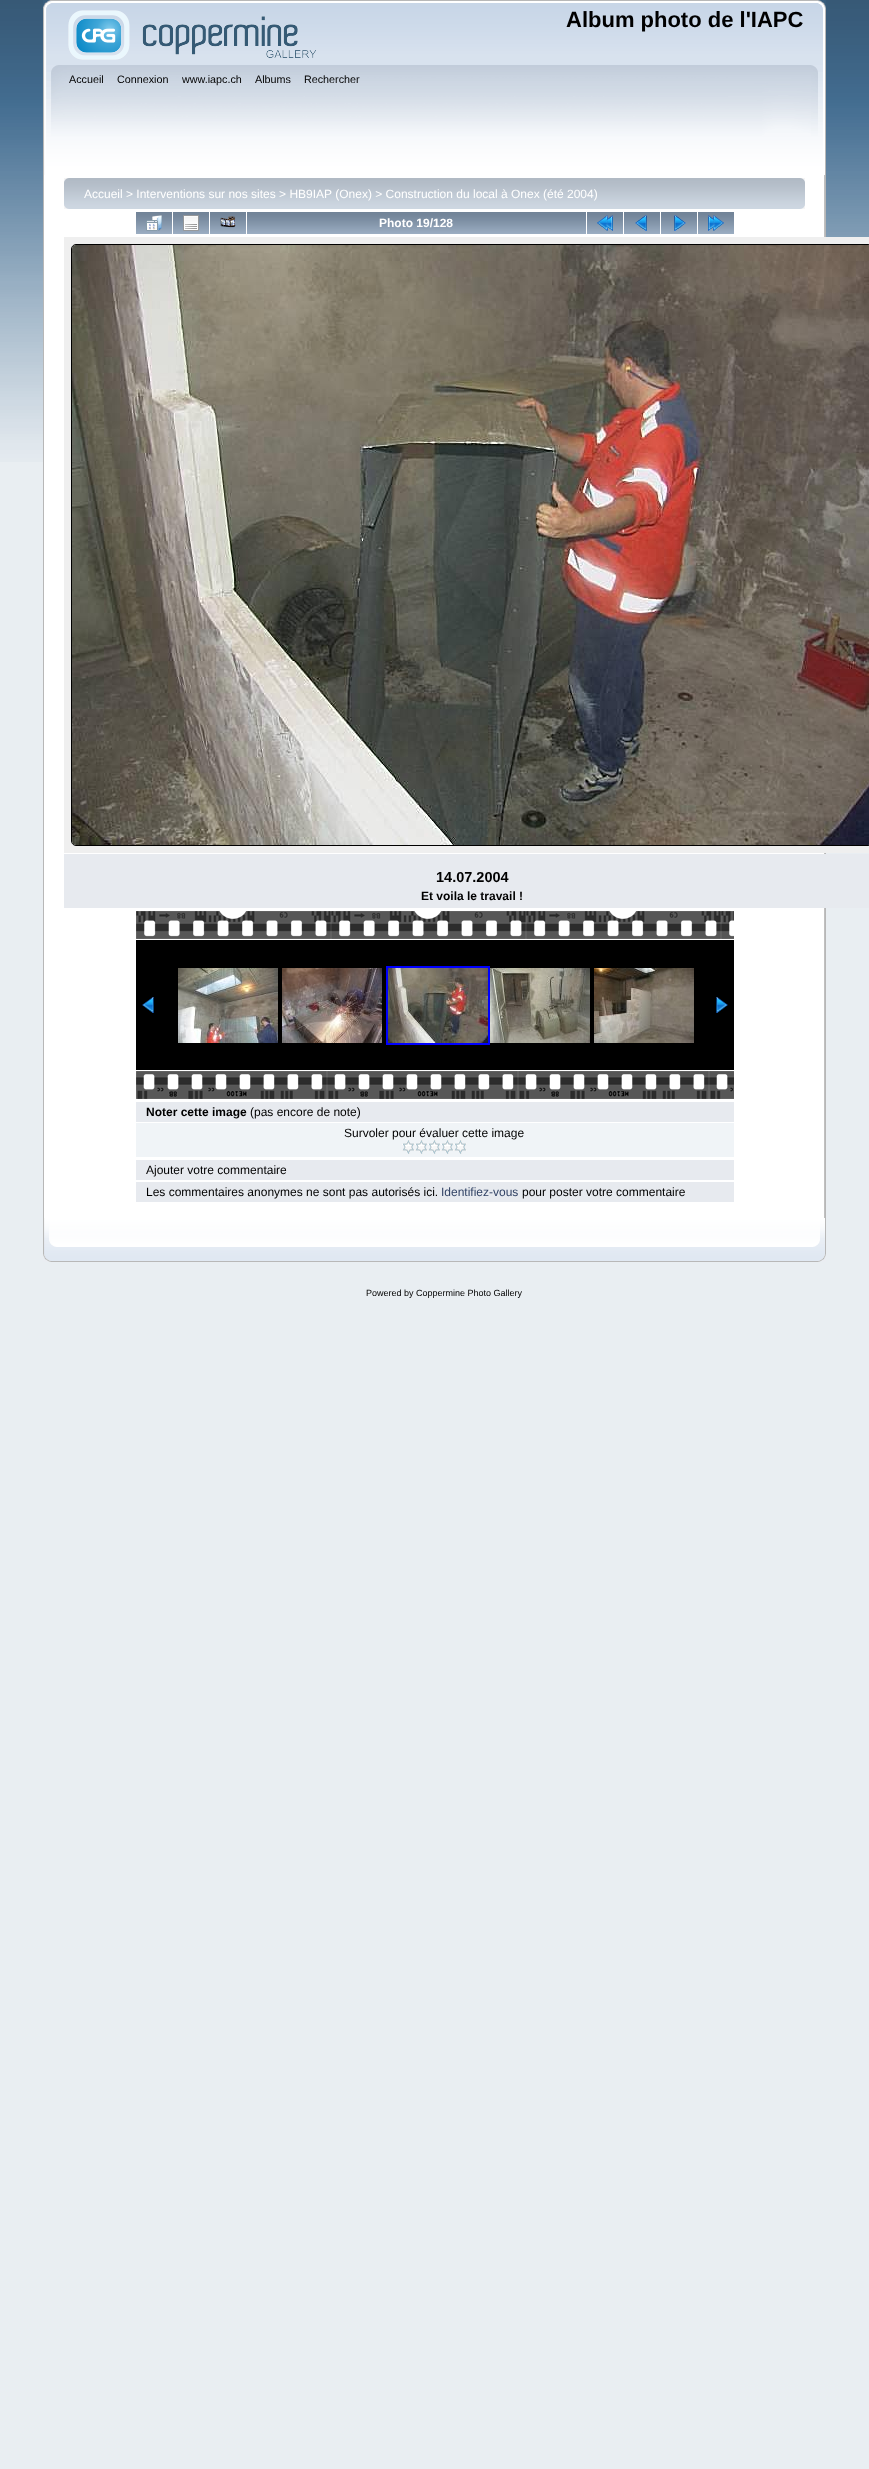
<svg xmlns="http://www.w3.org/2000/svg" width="869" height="2469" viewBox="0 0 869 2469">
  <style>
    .t1 { font: bold 22px Liberation Sans; fill: #000; }
    .t2 { font: 10.75px Liberation Sans; fill: #000; }
    .t3 { font: 12px Liberation Sans; fill: #fff; }
    .t4 { font: bold 12px Liberation Sans; fill: #fff; }
    .t5 { font: bold 14.5px Liberation Sans; fill: #000; }
    .t6 { font: bold 12px Liberation Sans; fill: #000; }
    .t7 { font: 12px Liberation Sans; fill: #000; }
    .t8 { font: 12px Liberation Sans; fill: #346; }
    .t9 { font: 9px Liberation Sans; fill: #000; }
  </style>
  <rect width="100%" height="100%" fill="#e9eef2"/>
  <image x="0" y="0" width="869" height="462" href="images/1.png"/>
  <image x="43" y="0" width="775" height="65" href="images/2.png"/>
  <image x="818" y="0" width="8" height="65" href="images/3.png"/>
  <image x="68" y="10" width="248" height="50" href="images/4.png"/>
  <text x="566" y="27" class="t1">Album photo de l'IAPC</text>
  <image x="43" y="65" width="768" height="110" href="images/5.png"/>
  <image x="811" y="65" width="15" height="110" href="images/6.png"/>
  <text x="69" y="83" class="t2">Accueil</text>
  <text x="117" y="83" class="t2">Connexion</text>
  <text x="182" y="83" class="t2">www.iapc.ch</text>
  <text x="255" y="83" class="t2">Albums</text>
  <text x="304" y="83" class="t2">Rechercher</text>
  <rect x="44" y="175" width="780" height="1043" fill="#fff"/>
  <rect x="43" y="175" width="1" height="1043" fill="#b7b7b7"/>
  <image x="824" y="175" width="2" height="1043" href="images/7.png"/>
  <image x="64" y="178" width="736" height="31" href="images/8.png"/>
  <image x="800" y="178" width="5" height="31" href="images/9.png"/>
  <text x="84" y="198" class="t3">Accueil &gt; Interventions sur nos sites &gt; HB9IAP (Onex) &gt; Construction du local à Onex (été 2004)</text>
  <image x="136" y="212" width="36" height="22" href="images/10.png"/>
  <image x="146" y="215" width="16" height="16" href="images/11.png"/>
  <image x="173" y="212" width="36" height="22" href="images/10.png"/>
  <image x="183" y="215" width="16" height="16" href="images/12.png"/>
  <image x="210" y="212" width="36" height="22" href="images/10.png"/>
  <image x="220" y="216" width="16" height="12" href="images/13.png"/>
  <image x="247" y="212" width="339" height="22" href="images/14.png"/>
  <text x="379" y="227" class="t4">Photo 19/128</text>
  <image x="587" y="212" width="36" height="22" href="images/10.png"/>
  <image x="597" y="215" width="16" height="16" href="images/15.png"/>
  <image x="624" y="212" width="36" height="22" href="images/10.png"/>
  <image x="635" y="215" width="12" height="16" href="images/16.png"/>
  <image x="661" y="212" width="36" height="22" href="images/10.png"/>
  <image x="674" y="215" width="12" height="16" href="images/17.png"/>
  <image x="698" y="212" width="36" height="22" href="images/10.png"/>
  <image x="708" y="215" width="16" height="16" href="images/18.png"/>
  <rect x="64" y="237" width="805" height="616" fill="#efefef"/>
  <rect x="71.5" y="244.5" width="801" height="601" rx="4.5" fill="none" stroke="#000"/>
  <image x="72" y="245" width="797" height="600" href="images/19.png"/>
  <rect x="64" y="854" width="805" height="54" fill="#e7eaef"/>
  <text x="436" y="882" class="t5">14.07.2004</text>
  <text x="421" y="900" class="t6">Et voila le travail !</text>
  <image x="136" y="911" width="598" height="28" href="images/20.png"/>
  <rect x="136" y="940" width="598" height="130" fill="#000"/>
  <image x="142" y="997" width="12" height="16" href="images/21.png"/>
  <image x="178" y="968" width="100" height="75" href="images/22.png"/>
  <image x="282" y="968" width="100" height="75" href="images/23.png"/>
  <rect x="387" y="967" width="102" height="77" fill="none" stroke="#00f" stroke-width="2"/>
  <image x="388" y="968" width="100" height="75" href="images/24.png"/>
  <image x="490" y="968" width="100" height="75" href="images/25.png"/>
  <image x="594" y="968" width="100" height="75" href="images/26.png"/>
  <image x="716" y="997" width="12" height="16" href="images/27.png"/>
  <image x="136" y="1071" width="598" height="28" href="images/28.png"/>
  <rect x="136" y="1102" width="598" height="20" fill="#e7eaef"/>
  <text x="146" y="1116" class="t6">Noter cette image</text>
  <text x="250" y="1116" class="t7">(pas encore de note)</text>
  <rect x="136" y="1123" width="598" height="34" fill="#f0f4f7"/>
  <text x="344" y="1137" class="t7">Survoler pour évaluer cette image</text>
  <image x="402" y="1140" width="13" height="14" href="images/29.png"/>
  <image x="415" y="1140" width="13" height="14" href="images/29.png"/>
  <image x="428" y="1140" width="13" height="14" href="images/29.png"/>
  <image x="441" y="1140" width="13" height="14" href="images/29.png"/>
  <image x="454" y="1140" width="13" height="14" href="images/29.png"/>
  <rect x="136" y="1160" width="598" height="20" fill="#e7eaef"/>
  <text x="146" y="1174" class="t7">Ajouter votre commentaire</text>
  <rect x="136" y="1182" width="598" height="20" fill="#e7eaef"/>
  <text x="146" y="1196" class="t7">Les commentaires anonymes ne sont pas autorisés ici.</text>
  <text x="441" y="1196" class="t8">Identifiez-vous</text>
  <text x="522" y="1196" class="t7">pour poster votre commentaire</text>
  <image x="43" y="1218" width="770" height="44" href="images/30.png"/>
  <image x="813" y="1218" width="13" height="44" href="images/31.png"/>
  <text x="366" y="1296" class="t9">Powered by Coppermine Photo Gallery</text>
</svg>
